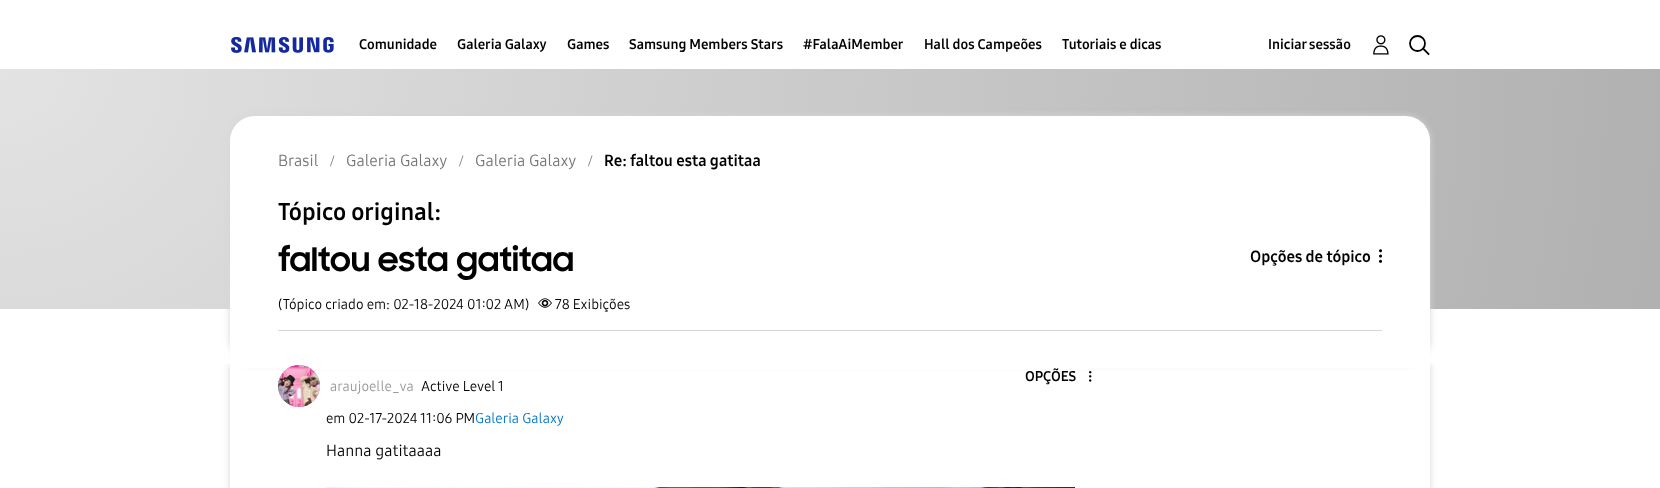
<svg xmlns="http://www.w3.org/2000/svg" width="1660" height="488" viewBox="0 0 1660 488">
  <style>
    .t1 { font: bold 14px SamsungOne; fill: #000; }
    .t2 { font: 16px SamsungOne; fill: #767676; }
    .t3 { font: 16px Liberation Serif; fill: #767676; }
    .t4 { font: bold 16px SamsungOne; fill: #000; }
    .t5 { font: bold 24px SamsungOne; fill: #000; }
    .t6 { font: bold 32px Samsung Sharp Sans; fill: #000; }
    .t7 { font: 14px SamsungOne; fill: #000; }
    .t8 { font: 14px SamsungOne; fill: #999; }
    .t9 { font: 14px SamsungOne; fill: #0077c8; }
    .t10 { font: 16px SamsungOne; fill: #000; }
  </style>
  <defs>
    <clipPath id="clip1"><path d="M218 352H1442V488H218ZM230 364H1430V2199H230Z" clip-rule="evenodd"/></clipPath>
    <radialGradient id="g1" gradientUnits="userSpaceOnUse" cx="0" cy="0" r="1" gradientTransform="matrix(1660 0 0 1440 0 69)"><stop offset="0" stop-color="#e3e3e3"/><stop offset="1" stop-color="#b1b1b1"/></radialGradient>
  </defs>
  <rect width="100%" height="100%" fill="#fff"/>
  <g clip-path="url(#clip1)">
    <rect x="230" y="364" width="1200" height="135" fill="#d6d6d6" filter="blur(3.5px)"/>
  </g>
  <rect x="226" y="359" width="1208" height="5" fill="#fff"/>
  <image x="231" y="37" width="103" height="16" href="images/1.png"/>
  <text x="359" y="49" class="t1">Comunidade</text>
  <text x="457" y="49" class="t1">Galeria Galaxy</text>
  <text x="567" y="49" class="t1">Games</text>
  <text x="629" y="49" class="t1">Samsung Members Stars</text>
  <text x="803" y="49" class="t1">#FalaAiMember</text>
  <text x="924" y="49" class="t1">Hall dos Campeões</text>
  <text x="1062" y="49" class="t1">Tutoriais e dicas</text>
  <text x="1268" y="49" class="t1">Iniciar sessão</text>
  <image x="1373" y="35" width="16" height="20" href="images/2.png"/>
  <circle cx="1417.5" cy="43.5" r="7.5" fill="none" stroke="#000" stroke-width="1.8"/>
  <path d="M1424 49.5L1428.5 54" fill="none" stroke="#000" stroke-width="1.8" stroke-linecap="square"/>
  <rect x="0" y="69" width="1660" height="240" fill="url(#g1)"/>
  <rect x="230" y="116" width="1200" height="248" rx="25" fill="#d6d6d6" filter="blur(3.5px)"/>
  <path d="M255 116H1405C1419 116 1430 127 1430 141V364H230V141C230 127 241 116 255 116Z" fill="#fff"/>
  <rect x="278" y="330" width="1104" height="1" fill="#d6d6d6"/>
  <text x="278" y="166" class="t2">Brasil</text>
  <text x="330" y="166" class="t3">/</text>
  <text x="346" y="166" class="t2">Galeria Galaxy</text>
  <text x="459" y="166" class="t3">/</text>
  <text x="475" y="166" class="t2">Galeria Galaxy</text>
  <text x="588" y="166" class="t3">/</text>
  <text x="604" y="166" class="t4">Re: faltou esta gatitaa</text>
  <text x="278" y="220" class="t5">Tópico original:</text>
  <text x="278" y="271" class="t6">faltou esta gatitaa</text>
  <text x="1250" y="262" class="t4">Opções de tópico</text>
  <image x="1379" y="249" width="3" height="14" href="images/3.png"/>
  <text x="278" y="309" class="t7">(Tópico criado em: 02-18-2024 01:02 AM)</text>
  <image x="538" y="298" width="14" height="10" href="images/4.png"/>
  <text x="555" y="309" class="t7">78 Exibições</text>
  <rect x="231" y="364" width="1198" height="4" fill="#fff"/>
  <rect x="278" y="368" width="813" height="1" fill="#fff"/>
  <text x="1025" y="381" class="t1">OPÇÕES</text>
  <image x="1089" y="371" width="3" height="11" href="images/5.png"/>
  <rect x="278" y="365" width="42" height="42" rx="21" fill="#999" filter="blur(0.5px)"/>
  <image x="278" y="365" width="42" height="42" href="images/6.png"/>
  <text x="330" y="391" class="t8">araujoelle_va</text>
  <text x="421" y="391" class="t7">Active Level 1</text>
  <text x="326" y="423" class="t7">em 02-17-2024</text>
  <text x="420" y="423" class="t7">11:06 PM</text>
  <text x="475" y="423" class="t9">Galeria Galaxy</text>
  <text x="326" y="456" class="t10">Hanna gatitaaaa</text>
  <image x="326" y="487" width="749" height="1" href="images/7.png"/>
</svg>
